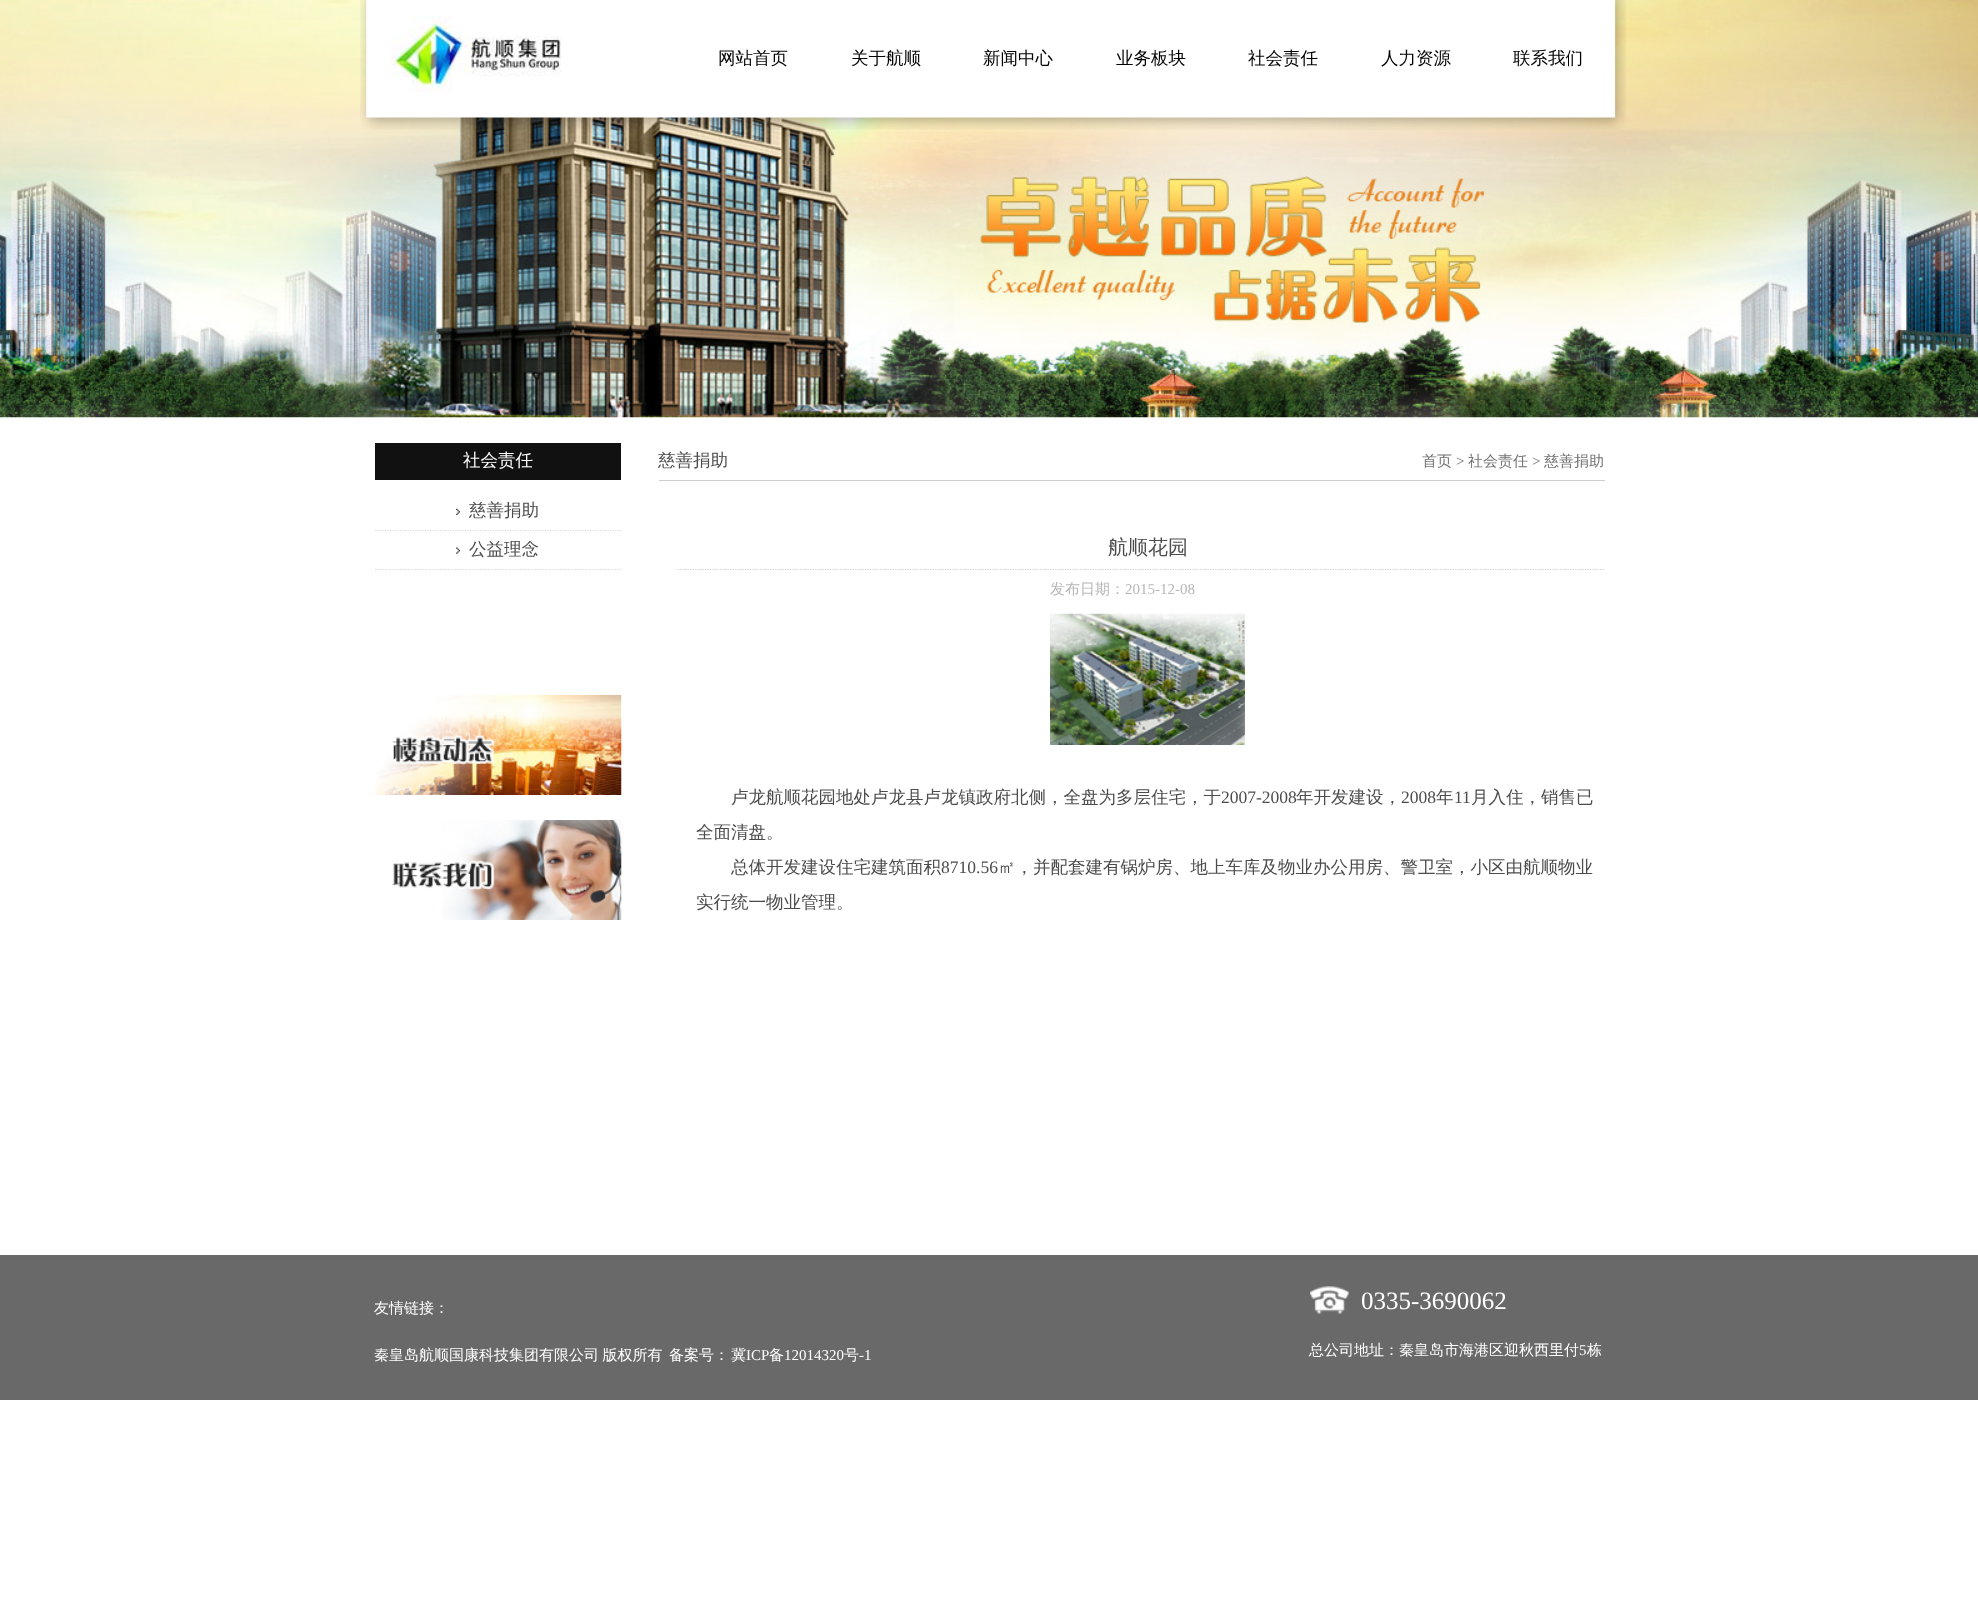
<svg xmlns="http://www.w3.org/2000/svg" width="1978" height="1619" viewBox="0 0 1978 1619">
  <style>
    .t1 { font: 500 17.5px WenQuanYi Zen Hei; fill: #000; }
    .t2 { font: 500 17.5px WenQuanYi Zen Hei; fill: #fff; }
    .t3 { font: 500 17.5px WenQuanYi Zen Hei; fill: #4c4c4c; }
    .t4 { font: 500 15px WenQuanYi Zen Hei; fill: #727272; }
    .t5 { font: 15px Liberation Serif; fill: #727272; }
    .t6 { font: 500 20px WenQuanYi Zen Hei; fill: #4c4c4c; }
    .t7 { font: 500 15px WenQuanYi Zen Hei; fill: #b7b7b7; }
    .t8 { font: 15px Liberation Serif; fill: #b7b7b7; }
    .t9 { font: 17.5px Liberation Serif; fill: #4c4c4c; }
    .t10 { font: 500 15px WenQuanYi Zen Hei; fill: #fff; }
    .t11 { font: 15px Liberation Serif; fill: #fff; }
    .t12 { font: 25px Liberation Serif; fill: #fff; }
  </style>
  <defs>
    <clipPath id="clip1"><rect x="659" y="481" width="946" height="439"/></clipPath>
  </defs>
  <rect width="100%" height="100%" fill="#fff"/>
  <image x="0" y="0" width="1978" height="418" href="images/1.png"/>
  <image x="360" y="0" width="1266" height="130" href="images/2.png"/>
  <image x="391" y="16" width="171" height="77" href="images/3.png"/>
  <text x="718" y="64" class="t1">网站首页</text>
  <text x="851" y="64" class="t1">关于航顺</text>
  <text x="983" y="64" class="t1">新闻中心</text>
  <text x="1116" y="64" class="t1">业务板块</text>
  <text x="1248" y="64" class="t1">社会责任</text>
  <text x="1381" y="64" class="t1">人力资源</text>
  <text x="1513" y="64" class="t1">联系我们</text>
  <rect x="375" y="443" width="246" height="37" fill="#111"/>
  <text x="463" y="466" class="t2">社会责任</text>
  <image x="456" y="508" width="4" height="7" href="images/4.png"/>
  <path d="M375 530.5H621" fill="none" stroke="#d9d9d9" stroke-width="1.2" stroke-dasharray="1.25 1.25"/>
  <text x="469" y="516" class="t3">慈善捐助</text>
  <image x="456" y="547" width="4" height="7" href="images/5.png"/>
  <path d="M375 569.5H621" fill="none" stroke="#d9d9d9" stroke-width="1.2" stroke-dasharray="1.25 1.25"/>
  <text x="469" y="555" class="t3">公益理念</text>
  <image x="375" y="695" width="247" height="100" href="images/6.png"/>
  <image x="392" y="820" width="230" height="100" href="images/7.png"/>
  <rect x="659" y="480" width="946" height="1" fill="#cecece"/>
  <text x="658" y="466" class="t3">慈善捐助</text>
  <text x="1422" y="466" class="t4">首页</text>
  <text x="1456" y="466" class="t5">&gt;</text>
  <text x="1468" y="466" class="t4">社会责任</text>
  <text x="1532" y="466" class="t5">&gt;</text>
  <text x="1544" y="466" class="t4">慈善捐助</text>
  <g clip-path="url(#clip1)">
    <path d="M677.5 569.5H1619" fill="none" stroke="#cecece" stroke-width="1.2" stroke-dasharray="1.25 1.25"/>
  </g>
  <text x="1108" y="554" class="t6">航顺花园</text>
  <text x="1050" y="594" class="t7">发布日期：</text>
  <text x="1125" y="594" class="t8">2015-12-08</text>
  <image x="1050" y="613" width="195" height="132" href="images/8.png"/>
  <text x="731" y="803" class="t3">卢龙航顺花园地处卢龙县卢龙镇政府北侧，全盘为多层住宅，于</text>
  <text x="1221" y="803" class="t9">2007-2008</text>
  <text x="1296" y="803" class="t3">年开发建设，</text>
  <text x="1401" y="803" class="t9">2008</text>
  <text x="1436" y="803" class="t3">年</text>
  <text x="1454" y="803" class="t9">11</text>
  <text x="1471" y="803" class="t3">月入住，销售已</text>
  <text x="696" y="838" class="t3">全面清盘。</text>
  <text x="731" y="873" class="t3">总体开发建设住宅建筑面积</text>
  <text x="941" y="873" class="t9">8710.56</text>
  <text x="998" y="873" class="t3">㎡，并配套建有锅炉房、地上车库及物业办公用房、警卫室，小区由航顺物业</text>
  <text x="696" y="908" class="t3">实行统一物业管理。</text>
  <rect x="0" y="1255" width="1978" height="145" fill="#696969"/>
  <text x="374" y="1313" class="t10">友情链接：</text>
  <text x="374" y="1360" word-spacing="-1" class="t10">秦皇岛航顺国康科技集团有限公司 版权所有</text>
  <text x="669" y="1360" class="t10">备案号：</text>
  <text x="731" y="1360" class="t10">冀</text>
  <text x="746" y="1360" class="t11">ICP</text>
  <text x="769" y="1360" class="t10">备</text>
  <text x="784" y="1360" class="t11">12014320</text>
  <text x="844" y="1360" class="t10">号</text>
  <text x="859" y="1360" class="t11">-1</text>
  <image x="1310" y="1286" width="39" height="28" href="images/9.png"/>
  <text x="1361" y="1309" class="t12">0335-3690062</text>
  <text x="1309" y="1355" class="t10">总公司地址：秦皇岛市海港区迎秋西里付</text>
  <text x="1579" y="1355" class="t11">5</text>
  <text x="1587" y="1355" class="t10">栋</text>
</svg>
